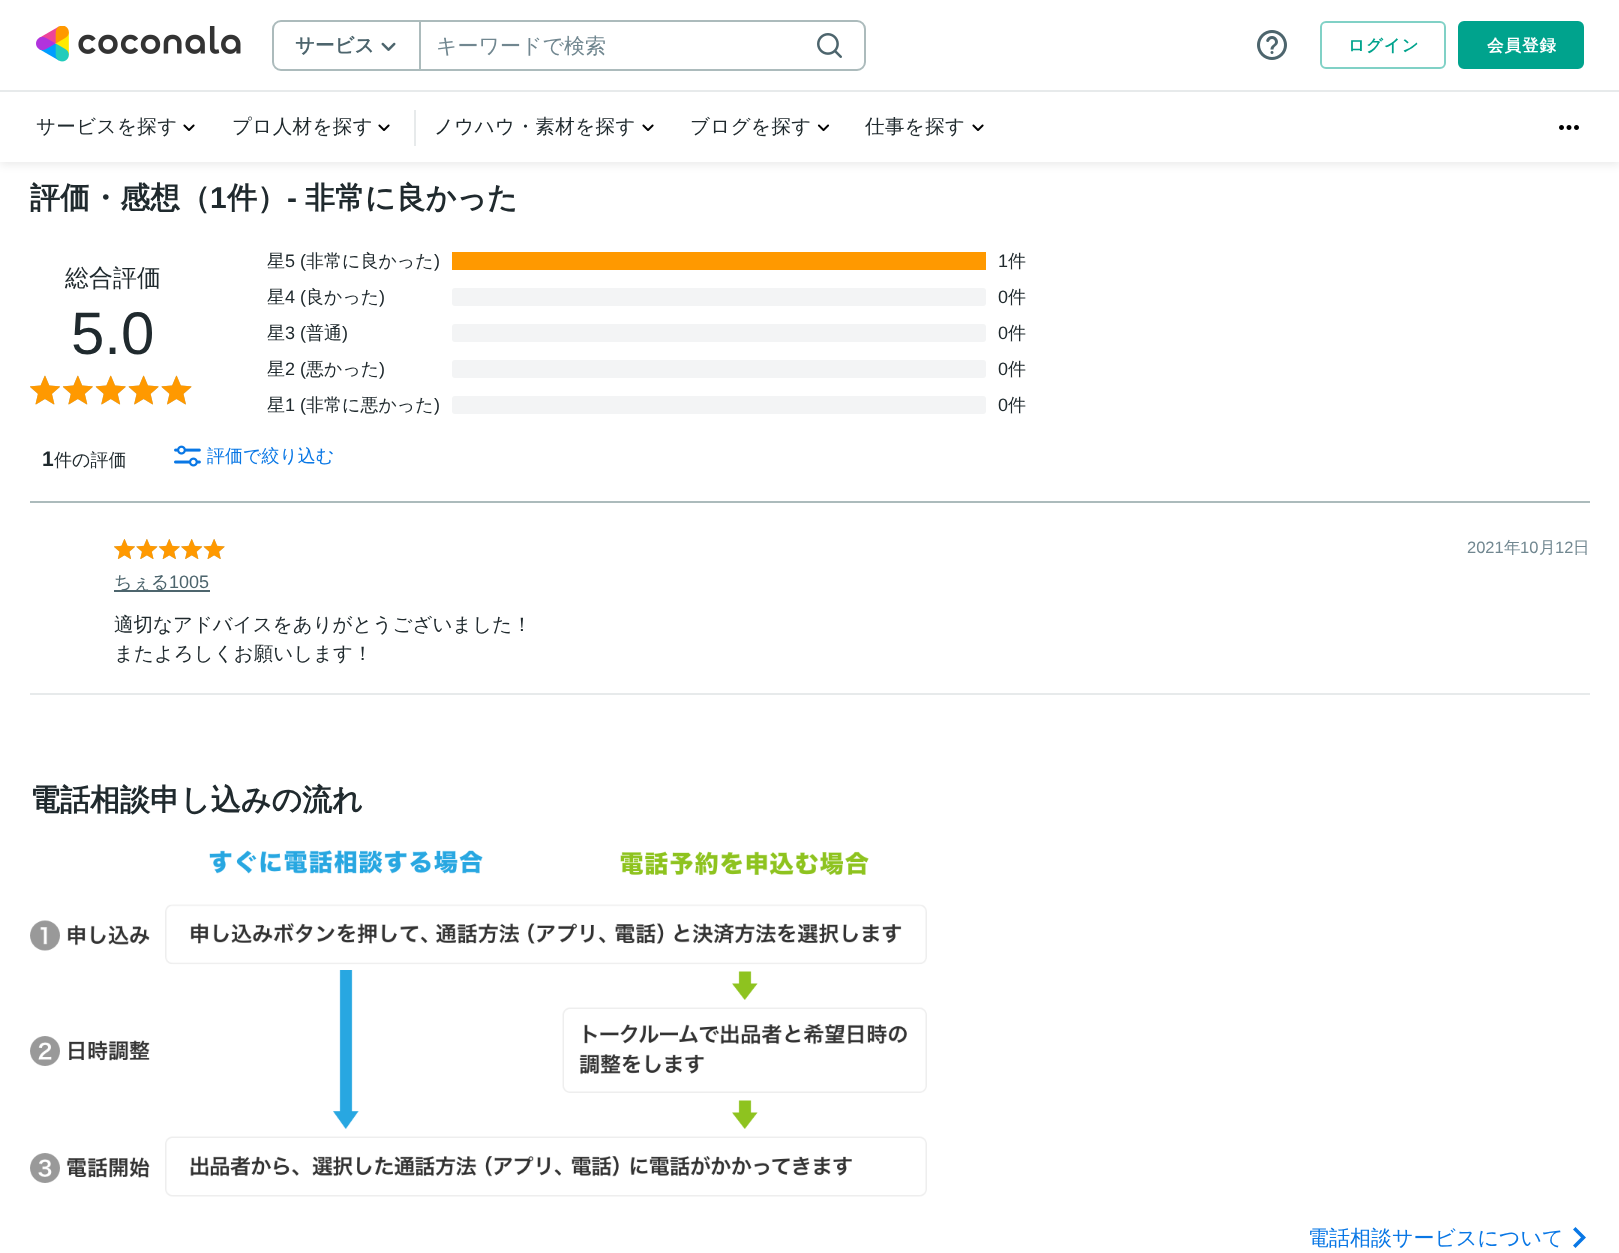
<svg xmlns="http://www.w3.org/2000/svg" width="1619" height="1253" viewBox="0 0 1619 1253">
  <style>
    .t1 { font: bold 19.5px WenQuanYi Zen Hei; fill: #4d656d; }
    .t2 { font: 500 21px WenQuanYi Zen Hei; fill: #718790; }
    .t3 { font: bold 16.5px WenQuanYi Zen Hei; letter-spacing: 1px; fill: #00a38d; }
    .t4 { font: bold 16.5px WenQuanYi Zen Hei; letter-spacing: 1px; fill: #fff; }
    .t5 { font: 500 19.5px WenQuanYi Zen Hei; letter-spacing: 0.4px; fill: #202a2e; }
    .t6 { font: bold 30px WenQuanYi Zen Hei; fill: #202a2e; }
    .t7 { font: bold 30px Liberation Sans; fill: #202a2e; }
    .t8 { font: 500 24px WenQuanYi Zen Hei; fill: #202a2e; }
    .t9 { font: 60px Liberation Sans; fill: #202a2e; }
    .t10 { font: 500 18px WenQuanYi Zen Hei; fill: #202a2e; }
    .t11 { font: 18px Liberation Sans; fill: #202a2e; }
    .t12 { font: bold 21px Liberation Sans; fill: #202a2e; }
    .t13 { font: 500 18px WenQuanYi Zen Hei; fill: #0977e5; }
    .t14 { font: 16.5px Liberation Sans; fill: #718790; }
    .t15 { font: 500 16.5px WenQuanYi Zen Hei; fill: #718790; }
    .t16 { font: 500 18px WenQuanYi Zen Hei; fill: #4d656d; }
    .t17 { font: 18px Liberation Sans; fill: #4d656d; }
    .t18 { font: 500 19.5px WenQuanYi Zen Hei; fill: #202a2e; }
    .t19 { font: 500 21px WenQuanYi Zen Hei; fill: #0977e5; }
  </style>
  <rect width="100%" height="100%" fill="#fff"/>
  <rect x="0" y="3" width="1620" height="162" fill="#00000014" filter="blur(4.5px)"/>
  <rect x="0" y="0" width="1619" height="162" fill="#fff"/>
  <image x="36" y="26" width="205" height="36" href="images/1.png"/>
  <rect x="273" y="21" width="592" height="49" rx="8" fill="none" stroke="#acbbbc" stroke-width="2"/>
  <text x="295" y="52" class="t1">サービス</text>
  <image x="381" y="42" width="15" height="9" href="images/2.png"/>
  <rect x="419" y="21" width="2" height="48" fill="#acbbbc"/>
  <text x="436" y="53" class="t2">キーワードで検索</text>
  <image x="817" y="33" width="25" height="25" href="images/3.png"/>
  <image x="1257" y="30" width="30" height="30" href="images/4.png"/>
  <rect x="1321" y="22" width="124" height="46" rx="5" fill="none" stroke="#80d1c6" stroke-width="2"/>
  <text x="1348" y="51" class="t3">ログイン</text>
  <rect x="1459" y="22" width="124" height="46" rx="5" fill="#00a38d" stroke="#00a38d" stroke-width="2"/>
  <text x="1487" y="51" class="t4">会員登録</text>
  <rect x="0" y="90" width="1619" height="2" fill="#e7eaeb"/>
  <text x="36" y="133" class="t5">サービスを探す</text>
  <image x="183" y="124" width="12" height="7" href="images/5.png"/>
  <text x="232" y="133" class="t5">プロ人材を探す</text>
  <image x="378" y="124" width="12" height="7" href="images/5.png"/>
  <rect x="414" y="110" width="2" height="36" fill="#e7eaeb"/>
  <text x="434" y="133" class="t5">ノウハウ・素材を探す</text>
  <image x="642" y="124" width="12" height="7" href="images/5.png"/>
  <text x="690" y="133" class="t5">ブログを探す</text>
  <image x="817" y="124" width="13" height="8" href="images/6.png"/>
  <text x="865" y="133" class="t5">仕事を探す</text>
  <image x="972" y="124" width="12" height="7" href="images/5.png"/>
  <image x="1559" y="125" width="20" height="5" href="images/7.png"/>
  <text x="30" y="208" class="t6">評価・感想（</text>
  <text x="210" y="208" class="t7">1</text>
  <text x="227" y="208" class="t6">件）</text>
  <text x="287" y="208" class="t7">-</text>
  <text x="305" y="208" class="t6">非常に良かった</text>
  <text x="65" y="286" class="t8">総合評価</text>
  <text x="71" y="354" class="t9">5.0</text>
  <image x="30" y="375" width="162" height="30" href="images/8.png"/>
  <image x="30" y="375" width="162" height="30" href="images/9.png"/>
  <text x="267" y="267" class="t10">星</text>
  <text x="285" y="267" class="t11">5 (</text>
  <text x="306" y="267" class="t10">非常に良かった</text>
  <text x="434" y="267" class="t11">)</text>
  <rect x="452" y="252" width="534" height="18" fill="#f90"/>
  <text x="998" y="267" class="t11">1</text>
  <text x="1008" y="267" class="t10">件</text>
  <text x="267" y="303" class="t10">星</text>
  <text x="285" y="303" class="t11">4 (</text>
  <text x="306" y="303" class="t10">良かった</text>
  <text x="379" y="303" class="t11">)</text>
  <rect x="452" y="288" width="534" height="18" rx="3" fill="#f3f4f5"/>
  <text x="998" y="303" class="t11">0</text>
  <text x="1008" y="303" class="t10">件</text>
  <text x="267" y="339" class="t10">星</text>
  <text x="285" y="339" class="t11">3 (</text>
  <text x="306" y="339" class="t10">普通</text>
  <text x="342" y="339" class="t11">)</text>
  <rect x="452" y="324" width="534" height="18" rx="3" fill="#f3f4f5"/>
  <text x="998" y="339" class="t11">0</text>
  <text x="1008" y="339" class="t10">件</text>
  <text x="267" y="375" class="t10">星</text>
  <text x="285" y="375" class="t11">2 (</text>
  <text x="306" y="375" class="t10">悪かった</text>
  <text x="379" y="375" class="t11">)</text>
  <rect x="452" y="360" width="534" height="18" rx="3" fill="#f3f4f5"/>
  <text x="998" y="375" class="t11">0</text>
  <text x="1008" y="375" class="t10">件</text>
  <text x="267" y="411" class="t10">星</text>
  <text x="285" y="411" class="t11">1 (</text>
  <text x="306" y="411" class="t10">非常に悪かった</text>
  <text x="434" y="411" class="t11">)</text>
  <rect x="452" y="396" width="534" height="18" rx="3" fill="#f3f4f5"/>
  <text x="998" y="411" class="t11">0</text>
  <text x="1008" y="411" class="t10">件</text>
  <text x="42" y="466" class="t12">1</text>
  <text x="54" y="466" class="t10">件の評価</text>
  <image x="174" y="445" width="27" height="22" href="images/10.png"/>
  <text x="207" y="462" class="t13">評価で絞り込む</text>
  <rect x="30" y="501" width="1560" height="2" fill="#acbbbc"/>
  <rect x="30" y="693" width="1560" height="2" fill="#e7eaeb"/>
  <image x="114" y="539" width="111" height="20" href="images/11.png"/>
  <image x="114" y="539" width="111" height="20" href="images/12.png"/>
  <text x="1467" y="553" class="t14">2021</text>
  <text x="1504" y="553" class="t15">年</text>
  <text x="1520" y="553" class="t14">10</text>
  <text x="1539" y="553" class="t15">月</text>
  <text x="1555" y="553" class="t14">12</text>
  <text x="1573" y="553" class="t15">日</text>
  <rect x="114" y="590" width="96" height="2" fill="#4d656d"/>
  <text x="114" y="588" class="t16">ちぇる</text>
  <text x="169" y="588" class="t17">1005</text>
  <text x="114" y="631" class="t18">適切なアドバイスをありがとうございました！</text>
  <text x="114" y="660" class="t18">またよろしくお願いします！</text>
  <text x="30" y="810" class="t6">電話相談申し込みの流れ</text>
  <image x="30" y="850" width="897" height="347" href="images/13.png"/>
  <text x="1308" y="1245" class="t19">電話相談サービスについて</text>
  <path d="M1586 1237.5L1575.5 1227L1573 1229.5L1581 1237.5L1573 1245.5L1575.5 1248Z" fill="#0977e5"/>
</svg>
